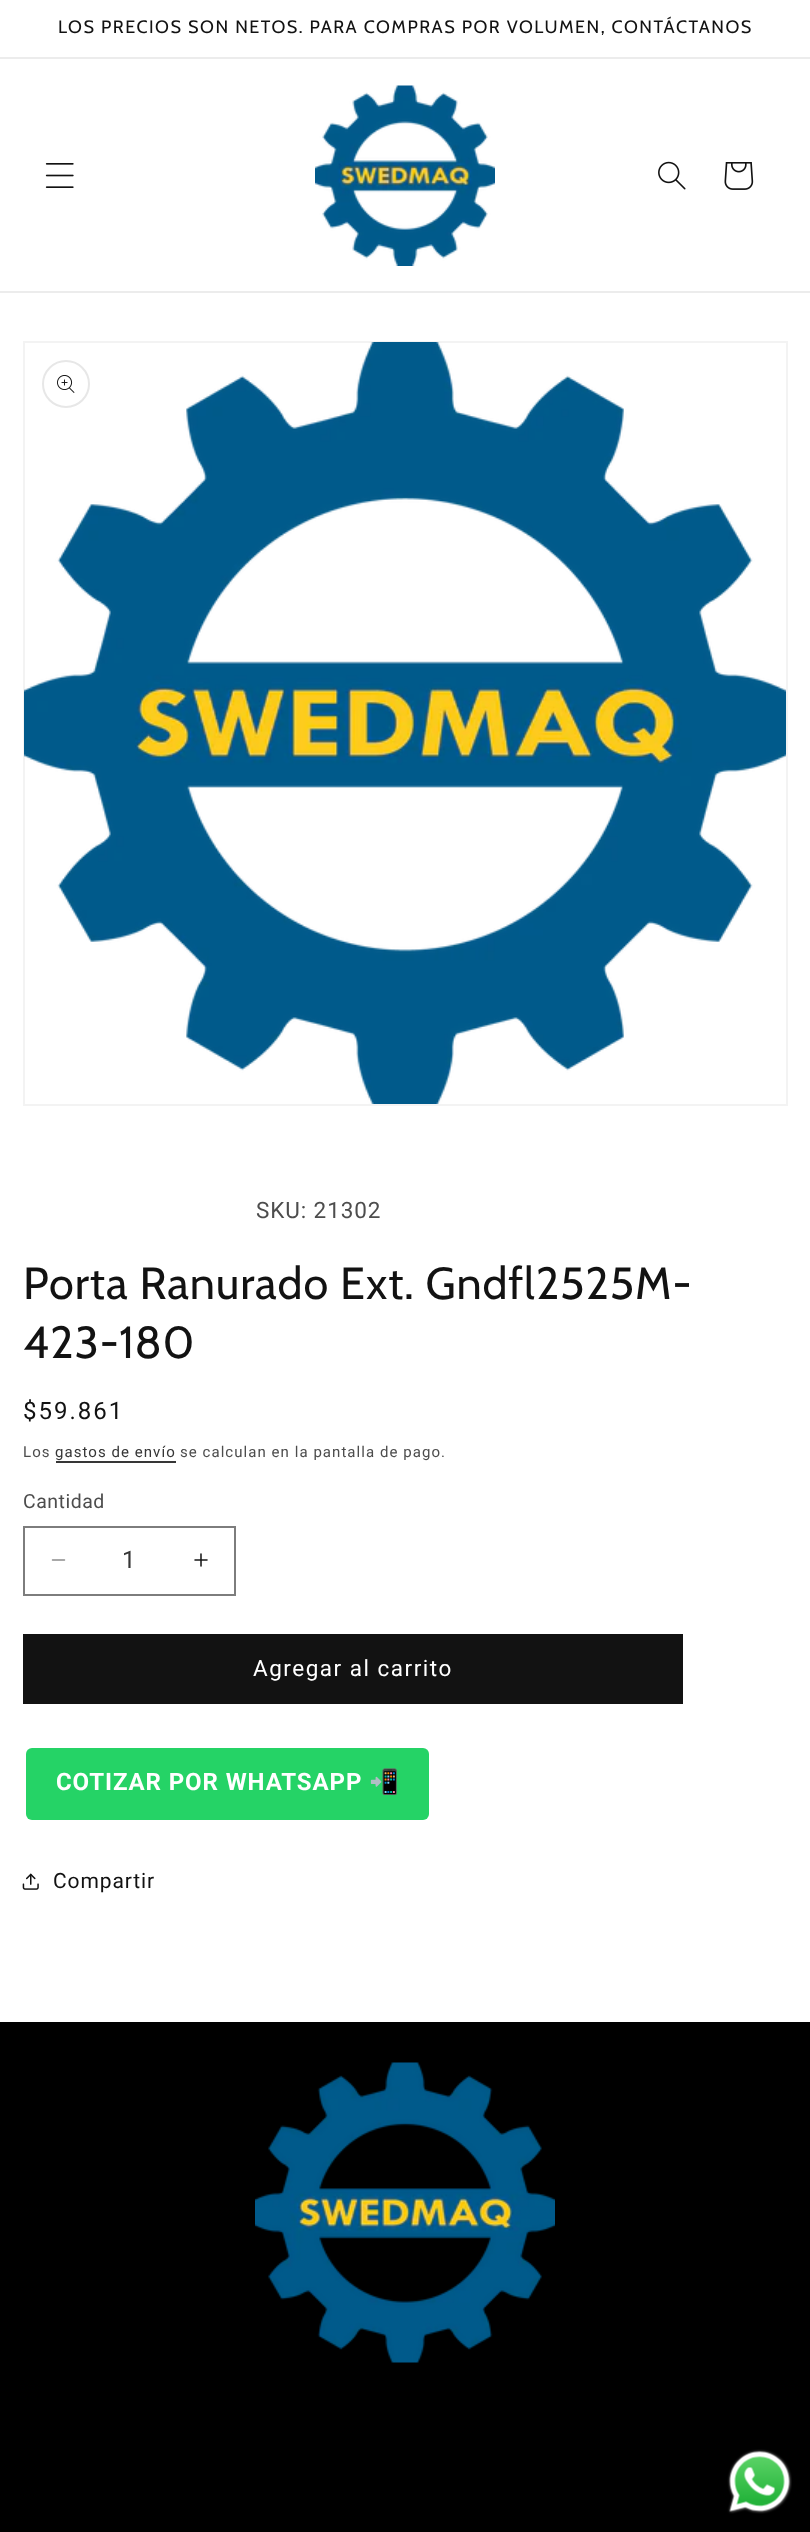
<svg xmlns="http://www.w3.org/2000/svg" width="810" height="2532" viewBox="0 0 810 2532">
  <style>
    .t1 { font: 18px Cabin; letter-spacing: 1.5px; fill: #121212; }
    .t2 { font: 22.5px Roboto; letter-spacing: 0.9px; fill: #4d4d4d; }
    .t3 { font: 45px Cabin; letter-spacing: 0.9px; fill: #121212; }
    .t4 { font: 24px Roboto; letter-spacing: 2px; fill: #121212; }
    .t5 { font: 15px Roboto; letter-spacing: 1.05px; fill: #4d4d4d; }
    .t6 { font: 15px Roboto; letter-spacing: 1.05px; fill: #363636; }
    .t7 { font: 19.5px Roboto; letter-spacing: 0.5px; fill: #4d4d4d; }
    .t8 { font: 24px Roboto; fill: #363636; }
    .t9 { font: 22.5px Roboto; letter-spacing: 1.5px; fill: #fff; }
    .t10 { font: bold 24px Roboto; letter-spacing: 0.9px; fill: #fff; }
    .t11 { font: bold 24px Noto Color Emoji; letter-spacing: 0.9px; fill: #fff; }
    .t12 { font: 21px Roboto; letter-spacing: 0.9px; fill: #121212; }
  </style>
  <rect width="100%" height="100%" fill="#fff"/>
  <rect x="0" y="57" width="810" height="2" fill="#ececec"/>
  <text x="58" y="33" class="t1">LOS PRECIOS SON NETOS. PARA COMPRAS POR VOLUMEN, CONTÁCTANOS</text>
  <rect x="0" y="291" width="810" height="2" fill="#ececec"/>
  <image x="45" y="163" width="29" height="25" href="images/1.png"/>
  <image x="315" y="85" width="180" height="181" href="images/2.png"/>
  <image x="658" y="161" width="28" height="29" href="images/3.png"/>
  <image x="724" y="162" width="30" height="28" href="images/4.png"/>
  <rect x="24" y="342" width="763" height="763" fill="none" stroke="#f3f3f3" stroke-width="2"/>
  <image x="24" y="342" width="762" height="762" href="images/5.png"/>
  <circle cx="66" cy="384" r="23" fill="none" stroke="#e7e7e7" stroke-width="2"/>
  <image x="57" y="375" width="18" height="18" href="images/6.png"/>
  <text x="256" y="1218" class="t2">SKU: 21302</text>
  <text x="23" y="1299" class="t3">Porta Ranurado Ext. Gndfl2525M-</text>
  <text x="23" y="1358" class="t3">423-180</text>
  <text x="23" y="1419" class="t4">$59.861</text>
  <text x="23" y="1457" class="t5">Los</text>
  <text x="55" y="1457" class="t6">gastos de envío</text>
  <rect x="56" y="1461" width="120" height="2" fill="#363636"/>
  <text x="180" y="1457" class="t5">se calculan en la pantalla de pago.</text>
  <text x="23" y="1508" class="t7">Cantidad</text>
  <image x="51" y="1559" width="15" height="2" href="images/7.png"/>
  <image x="194" y="1553" width="14" height="14" href="images/8.png"/>
  <rect x="24" y="1527" width="211" height="68" fill="none" stroke="#7d7d7d" stroke-width="2"/>
  <text x="122" y="1568" class="t8">1</text>
  <rect x="23" y="1634" width="660" height="70" fill="#121212"/>
  <text x="253" y="1676" class="t9">Agregar al carrito</text>
  <rect x="26" y="1748" width="403" height="72" rx="6" fill="#25d366"/>
  <text x="56" y="1790" class="t10">COTIZAR POR WHATSAPP</text>
  <text x="369" y="1790" class="t11">📲</text>
  <image x="22" y="1873" width="17" height="17" href="images/9.png"/>
  <text x="53" y="1888" class="t12">Compartir</text>
  <rect x="0" y="2022" width="810" height="510" fill="#000"/>
  <image x="255" y="2062" width="300" height="301" href="images/10.png"/>
  <image x="727" y="2449" width="65" height="65" href="images/11.png"/>
</svg>
